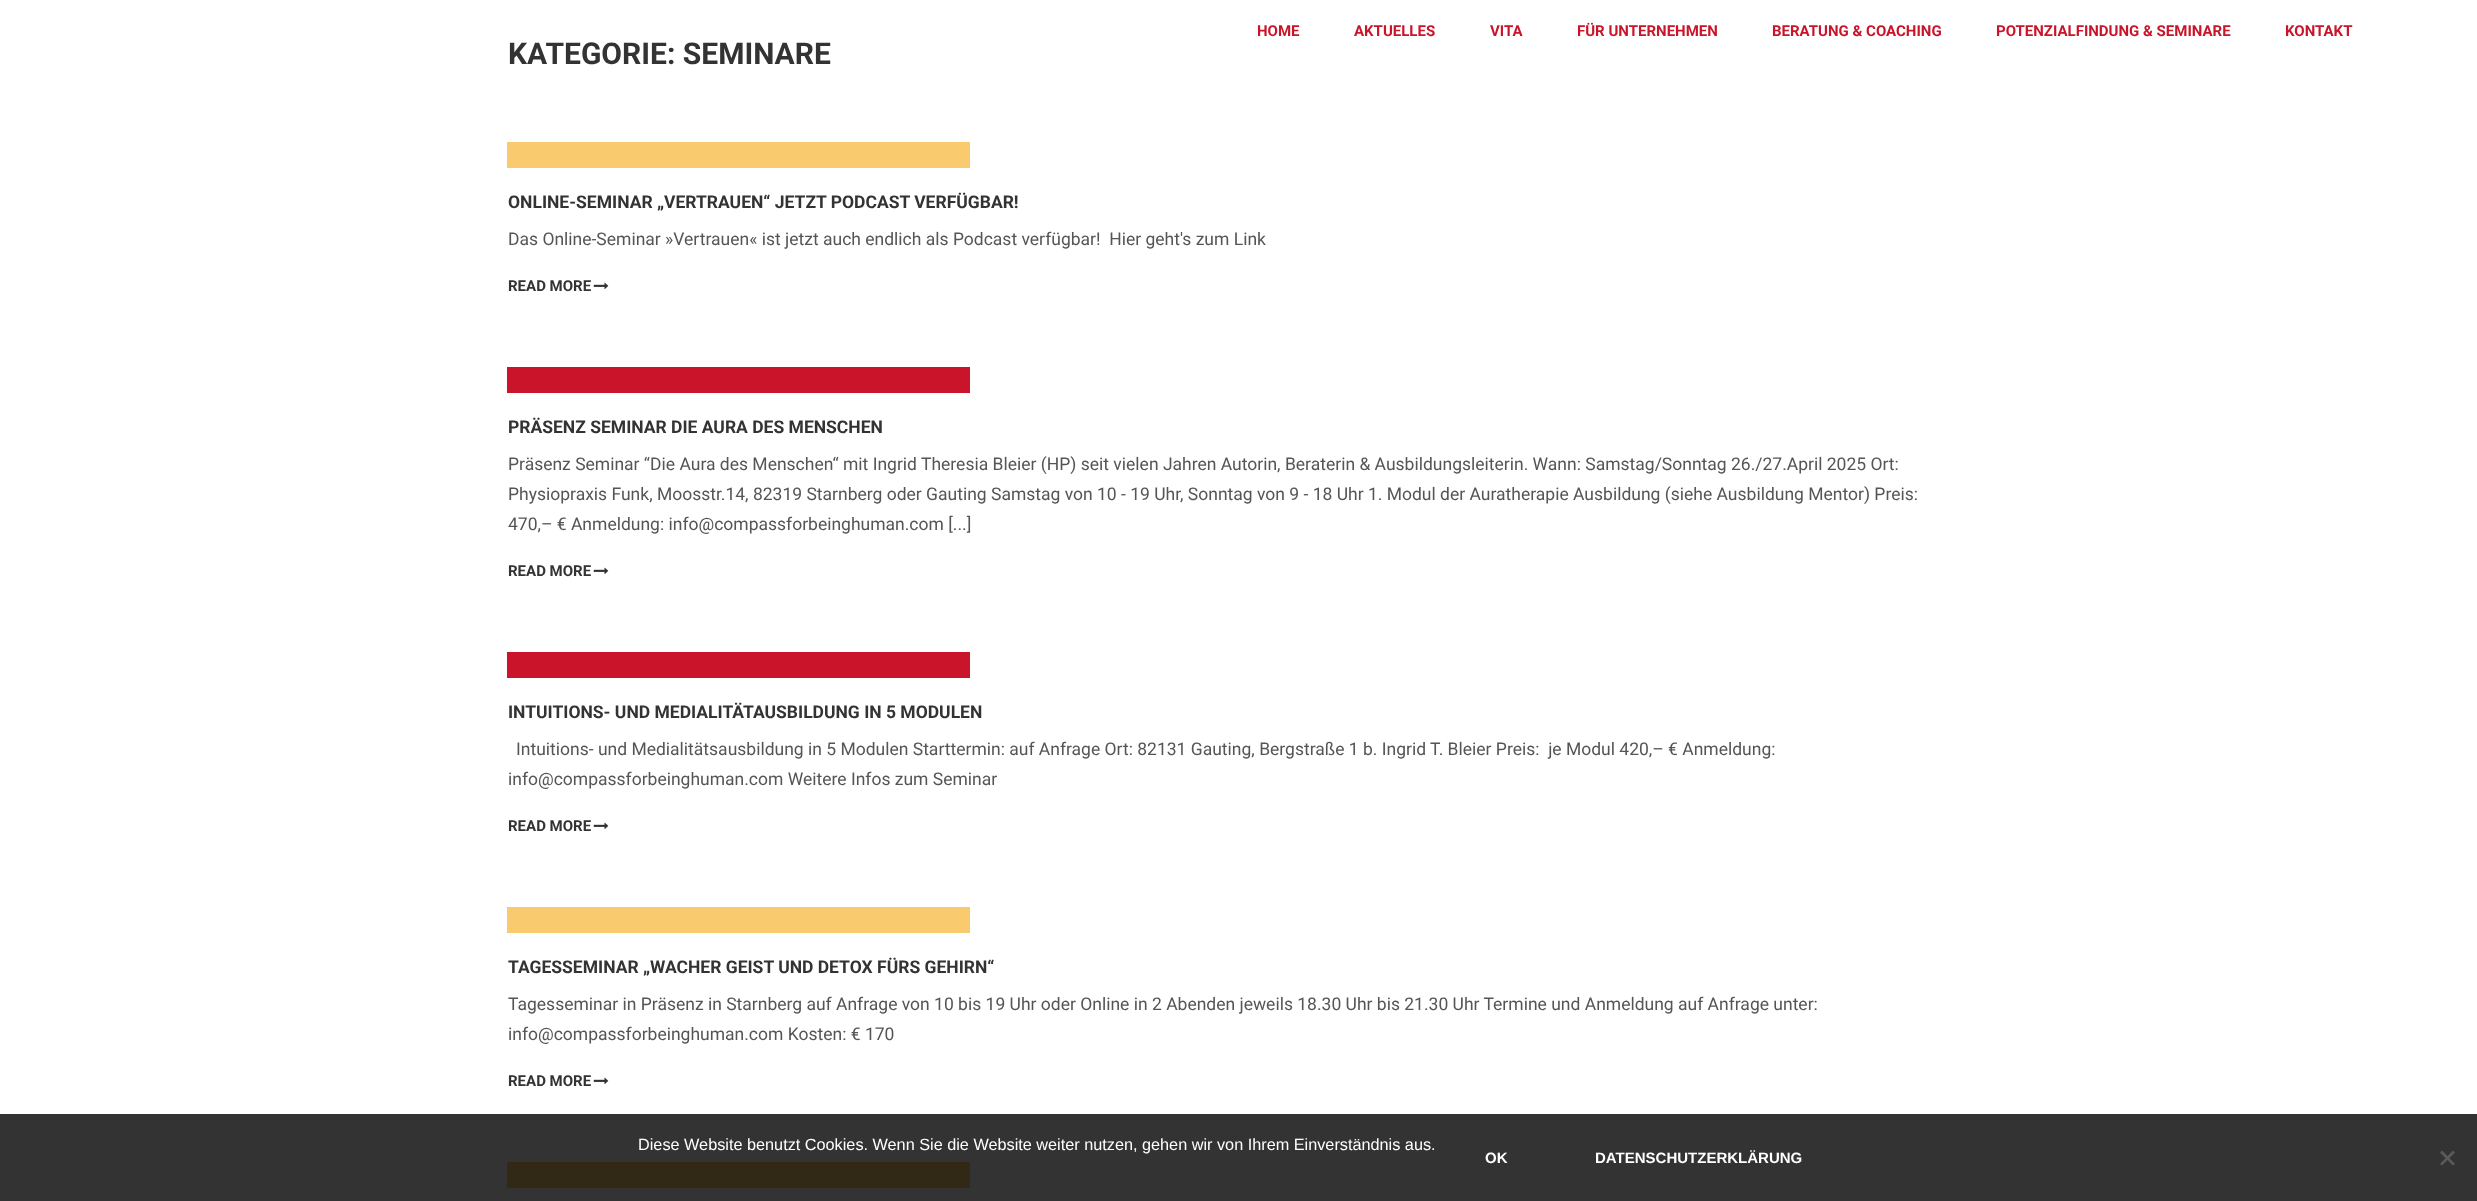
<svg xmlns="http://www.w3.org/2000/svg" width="2477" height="1201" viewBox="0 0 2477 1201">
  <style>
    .t1 { font: bold 15px Roboto; fill: #c9142a; }
    .t2 { font: bold 30px Roboto; fill: #333; }
    .t3 { font: bold 17.5px Roboto; fill: #333; }
    .t4 { font: 17.5px Roboto; fill: #555; }
    .t5 { font: bold 15px Roboto; fill: #333; }
    .t6 { font: 16.25px Liberation Sans; fill: #fff; }
    .t7 { font: bold 15px Liberation Sans; fill: #fff; }
  </style>
  <rect width="100%" height="100%" fill="#fff"/>
  <rect x="0" y="1114" width="2477" height="87" fill="#333"/>
  <text x="1257" y="36" class="t1">HOME</text>
  <text x="1354" y="36" class="t1">AKTUELLES</text>
  <text x="1490" y="36" class="t1">VITA</text>
  <text x="1577" y="36" class="t1">FÜR UNTERNEHMEN</text>
  <text x="1772" y="36" class="t1">BERATUNG &amp; COACHING</text>
  <text x="1996" y="36" class="t1">POTENZIALFINDUNG &amp; SEMINARE</text>
  <text x="2285" y="36" class="t1">KONTAKT</text>
  <text x="508" y="64" class="t2">KATEGORIE: SEMINARE</text>
  <rect x="507" y="142" width="463" height="26" fill="#f9ca6e"/>
  <text x="508" y="208" class="t3">ONLINE-SEMINAR „VERTRAUEN“ JETZT PODCAST VERFÜGBAR!</text>
  <text x="508" y="245" class="t4" xml:space="preserve">Das Online-Seminar »Vertrauen« ist jetzt auch endlich als Podcast verfügbar!  Hier geht's zum Link</text>
  <text x="508" y="291" class="t5">READ MORE</text>
  <image x="593" y="282" width="16" height="7" href="images/1.png"/>
  <rect x="507" y="367" width="463" height="26" fill="#c9142a"/>
  <text x="508" y="433" class="t3">PRÄSENZ SEMINAR DIE AURA DES MENSCHEN</text>
  <text x="508" y="470" class="t4">Präsenz Seminar “Die Aura des Menschen“ mit Ingrid Theresia Bleier (HP) seit vielen Jahren Autorin, Beraterin &amp; Ausbildungsleiterin. Wann: Samstag/Sonntag 26./27.April 2025 Ort:</text>
  <text x="508" y="500" class="t4">Physiopraxis Funk, Moosstr.14, 82319 Starnberg oder Gauting Samstag von 10 - 19 Uhr, Sonntag von 9 - 18 Uhr 1. Modul der Auratherapie Ausbildung (siehe Ausbildung Mentor) Preis:</text>
  <text x="508" y="530" class="t4">470,– € Anmeldung: info@compassforbeinghuman.com [...]</text>
  <text x="508" y="576" class="t5">READ MORE</text>
  <image x="593" y="567" width="16" height="7" href="images/1.png"/>
  <rect x="507" y="652" width="463" height="26" fill="#c9142a"/>
  <text x="508" y="718" class="t3">INTUITIONS- UND MEDIALITÄTAUSBILDUNG IN 5 MODULEN</text>
  <text x="516" y="755" class="t4" xml:space="preserve">Intuitions- und Medialitätsausbildung in 5 Modulen Starttermin: auf Anfrage Ort: 82131 Gauting, Bergstraße 1 b. Ingrid T. Bleier Preis:  je Modul 420,– € Anmeldung:</text>
  <text x="508" y="785" class="t4">info@compassforbeinghuman.com Weitere Infos zum Seminar</text>
  <text x="508" y="831" class="t5">READ MORE</text>
  <image x="593" y="822" width="16" height="7" href="images/1.png"/>
  <rect x="507" y="907" width="463" height="26" fill="#f9ca6e"/>
  <text x="508" y="973" class="t3">TAGESSEMINAR „WACHER GEIST UND DETOX FÜRS GEHIRN“</text>
  <text x="508" y="1010" class="t4">Tagesseminar in Präsenz in Starnberg auf Anfrage von 10 bis 19 Uhr oder Online in 2 Abenden jeweils 18.30 Uhr bis 21.30 Uhr Termine und Anmeldung auf Anfrage unter:</text>
  <text x="508" y="1040" class="t4">info@compassforbeinghuman.com Kosten: € 170</text>
  <text x="508" y="1086" class="t5">READ MORE</text>
  <image x="593" y="1077" width="16" height="7" href="images/1.png"/>
  <rect x="507" y="1162" width="463" height="26" fill="#322816"/>
  <text x="638" y="1150" class="t6">Diese Website benutzt Cookies. Wenn Sie die Website weiter nutzen, gehen wir von Ihrem Einverständnis aus.</text>
  <text x="1485" y="1163" class="t7">OK</text>
  <text x="1595" y="1163" class="t7">DATENSCHUTZERKLÄRUNG</text>
  <path d="M2453 1150.5L2455 1152.5L2442 1165.5L2440 1164Z" fill="#5a5a5a"/>
  <path d="M2440 1152.5L2442 1150.5L2455 1164L2453 1165.5Z" fill="#5a5a5a"/>
</svg>
